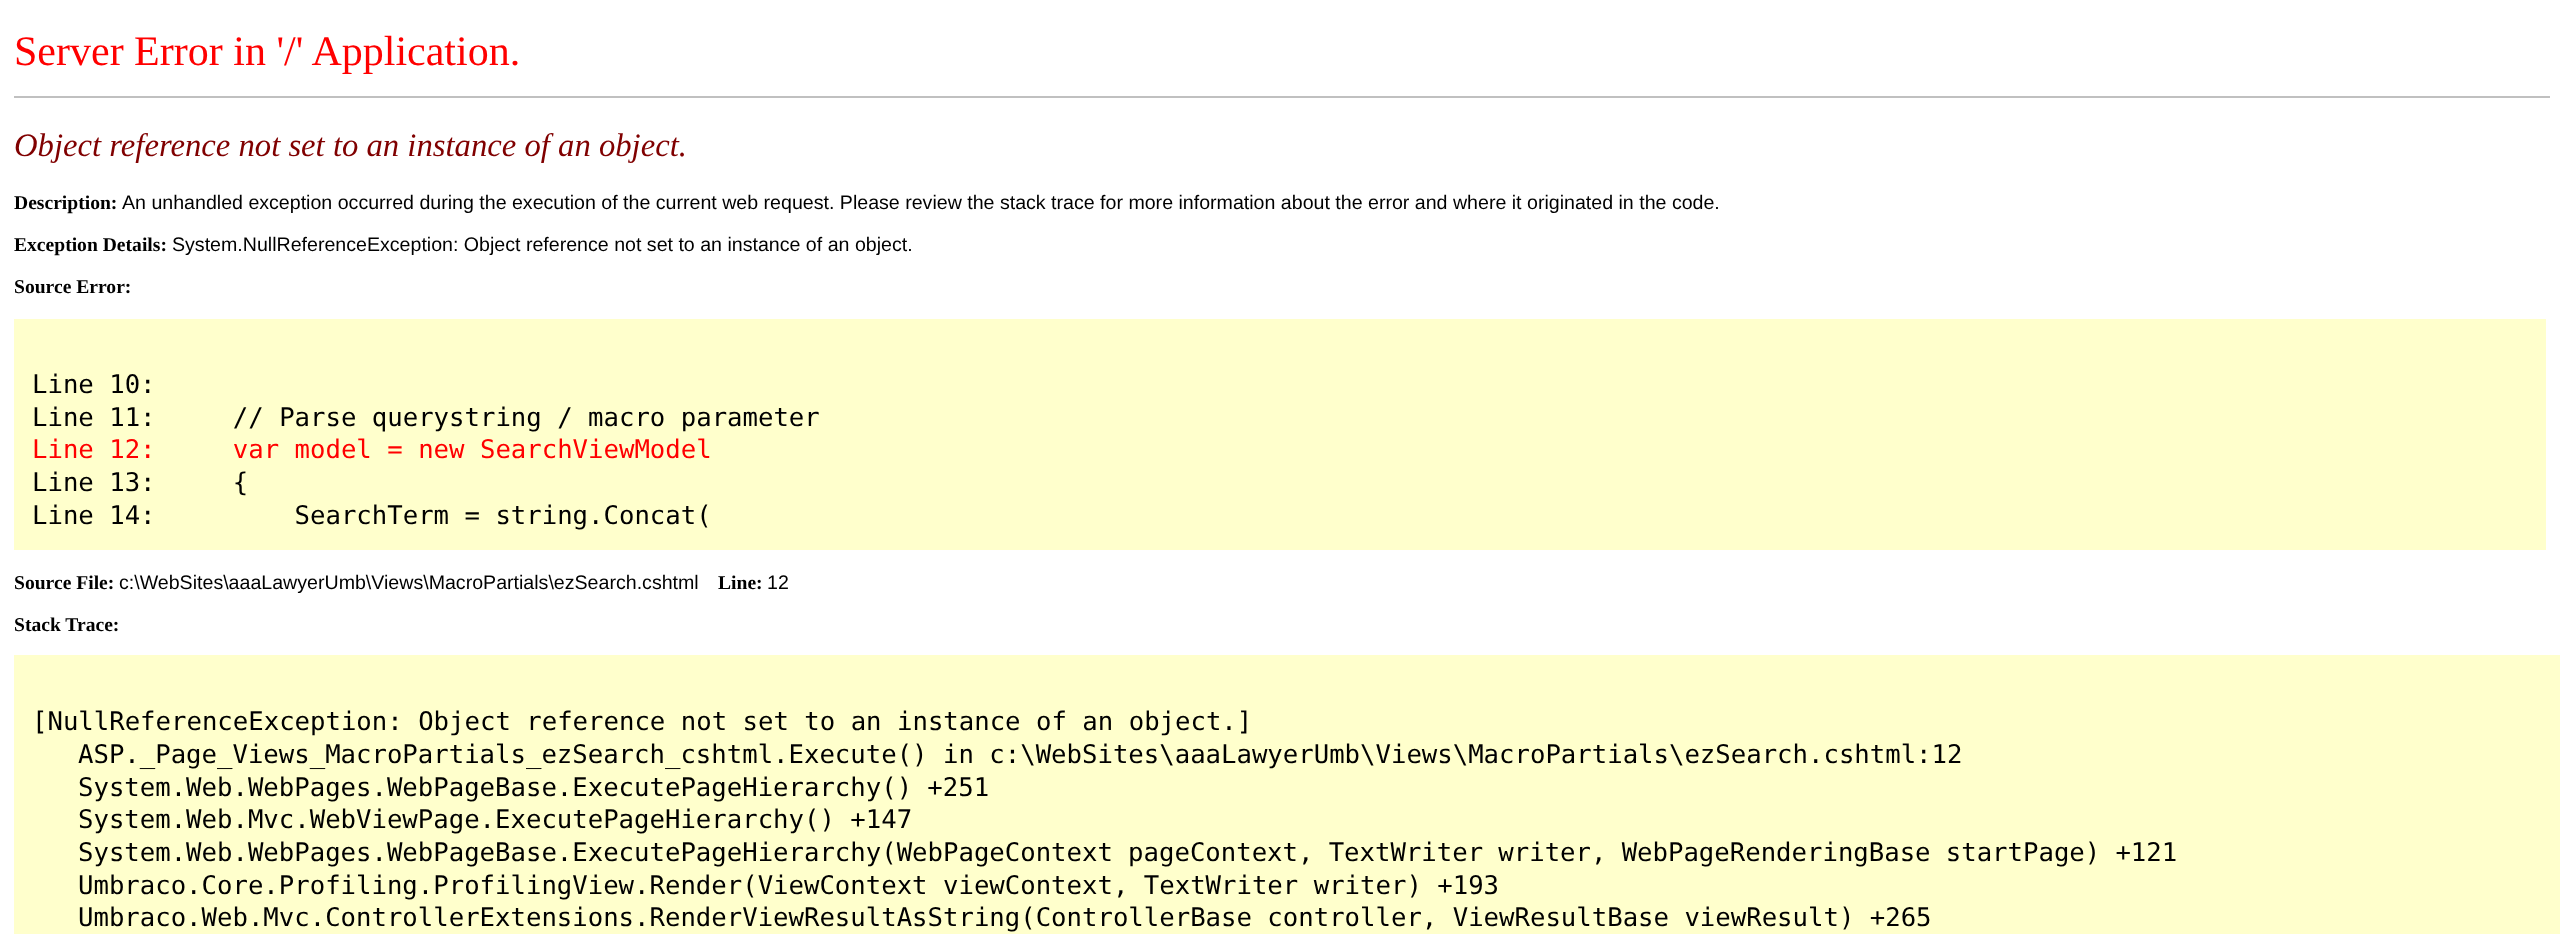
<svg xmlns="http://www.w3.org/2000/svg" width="2560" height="934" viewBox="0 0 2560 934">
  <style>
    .t1 { font: 42px Liberation Serif; fill: #f00; }
    .t2 { font: italic 32.7px Liberation Serif; fill: #800000; }
    .t3 { font: bold 19.6px Liberation Serif; fill: #000; }
    .t4 { font: 19.6px Liberation Sans; fill: #000; }
    .t5 { font: 25.67px DejaVu Sans Mono; fill: #000; }
    .t6 { font: 25.67px DejaVu Sans Mono; fill: #f00; }
  </style>
  <rect width="100%" height="100%" fill="#fff"/>
  <text x="14" y="65" class="t1">Server Error in '/' Application.</text>
  <rect x="14" y="96" width="2536" height="2" fill="#c0c0c0"/>
  <text x="14" y="156" class="t2">Object reference not set to an instance of an object.</text>
  <text x="14" y="209" class="t3">Description:</text>
  <text x="122" y="209" class="t4">An unhandled exception occurred during the execution of the current web request. Please review the stack trace for more information about the error and where it originated in the code.</text>
  <text x="14" y="251" class="t3">Exception Details:</text>
  <text x="172" y="251" class="t4">System.NullReferenceException: Object reference not set to an instance of an object.</text>
  <text x="14" y="293" class="t3">Source Error:</text>
  <rect x="14" y="319" width="2532" height="231" fill="#ffc"/>
  <text x="32" y="393" class="t5">Line 10:</text>
  <text x="32" y="426" class="t5" xml:space="preserve">Line 11:     // Parse querystring / macro parameter</text>
  <text x="32" y="458" class="t6" xml:space="preserve">Line 12:     var model = new SearchViewModel</text>
  <text x="32" y="491" class="t5" xml:space="preserve">Line 13:     {</text>
  <text x="32" y="524" class="t5" xml:space="preserve">Line 14:         SearchTerm = string.Concat(</text>
  <text x="14" y="589" class="t3">Source File:</text>
  <text x="119" y="589" class="t4">c:\WebSites\aaaLawyerUmb\Views\MacroPartials\ezSearch.cshtml</text>
  <text x="718" y="589" class="t3">Line:</text>
  <text x="767" y="589" class="t4">12</text>
  <text x="14" y="631" class="t3">Stack Trace:</text>
  <rect x="14" y="655" width="2546" height="279" fill="#ffc"/>
  <text x="32" y="730" class="t5">[NullReferenceException: Object reference not set to an instance of an object.]</text>
  <text x="78" y="763" class="t5">ASP._Page_Views_MacroPartials_ezSearch_cshtml.Execute() in c:\WebSites\aaaLawyerUmb\Views\MacroPartials\ezSearch.cshtml:12</text>
  <text x="78" y="796" word-spacing="-0.25" class="t5">System.Web.WebPages.WebPageBase.ExecutePageHierarchy() +251</text>
  <text x="78" y="828" class="t5">System.Web.Mvc.WebViewPage.ExecutePageHierarchy() +147</text>
  <text x="78" y="861" word-spacing="-0.25" class="t5">System.Web.WebPages.WebPageBase.ExecutePageHierarchy(WebPageContext pageContext, TextWriter writer, WebPageRenderingBase startPage) +121</text>
  <text x="78" y="894" class="t5">Umbraco.Core.Profiling.ProfilingView.Render(ViewContext viewContext, TextWriter writer) +193</text>
  <text x="78" y="926" class="t5">Umbraco.Web.Mvc.ControllerExtensions.RenderViewResultAsString(ControllerBase controller, ViewResultBase viewResult) +265</text>
</svg>
